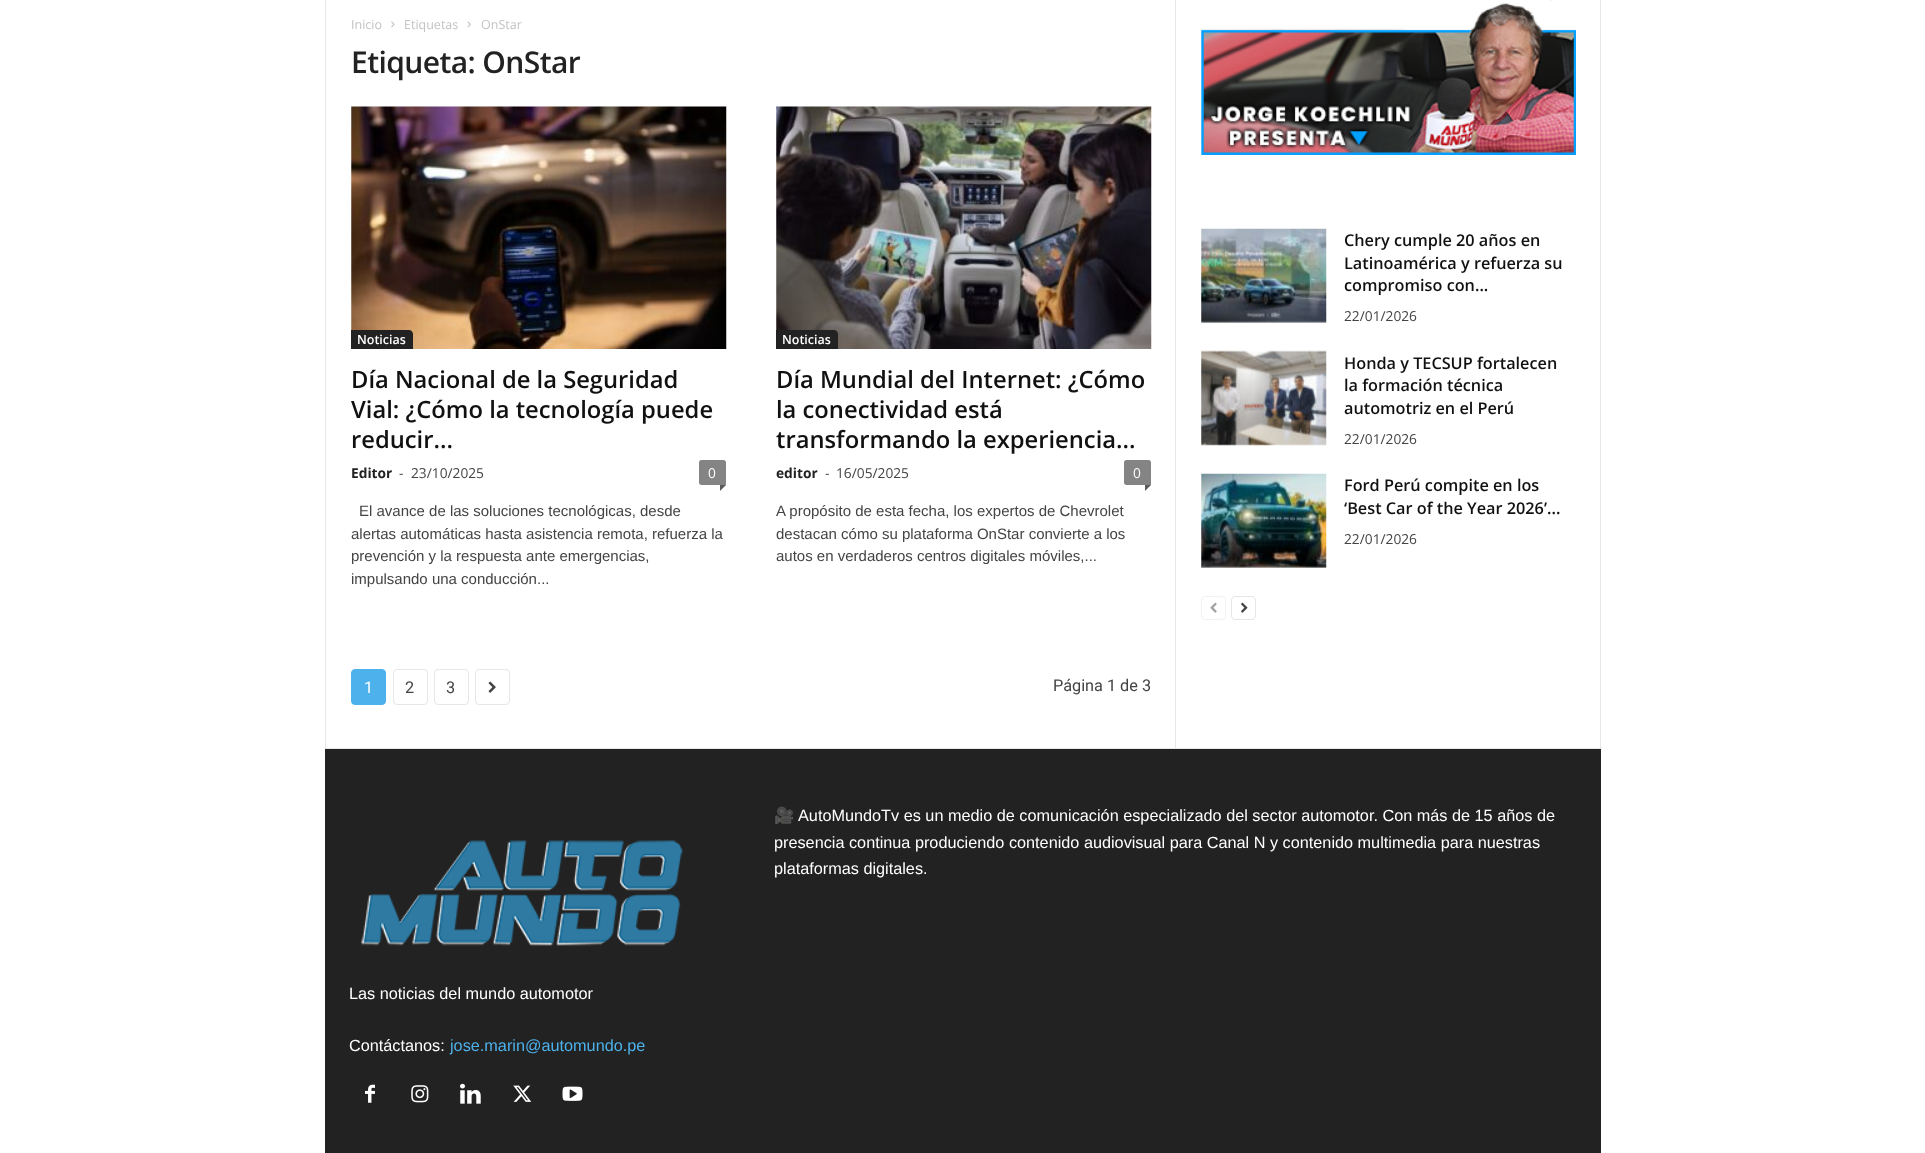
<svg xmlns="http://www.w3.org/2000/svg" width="1925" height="1153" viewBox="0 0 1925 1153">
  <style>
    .t1 { font: 12.5px Open Sans; fill: #c3c3c3; }
    .t2 { font: 600 30px Open Sans; letter-spacing: -0.6px; fill: #222; }
    .t3 { font: 600 12.5px Open Sans; fill: #fff; }
    .t4 { font: 600 23.75px Open Sans; fill: #111; }
    .t5 { font: bold 13.75px Open Sans; fill: #222; }
    .t6 { font: 13.75px Open Sans; fill: #444; }
    .t7 { font: 13.75px Open Sans; fill: #fff; }
    .t8 { font: 15px Liberation Sans; fill: #444; }
    .t9 { font: 16.25px Roboto; fill: #fff; }
    .t10 { font: 16.25px Roboto; fill: #444; }
    .t11 { font: 600 16.25px Open Sans; fill: #111; }
    .t12 { font: 16.25px Noto Color Emoji; fill: #fff; }
    .t13 { font: 16.25px Liberation Sans; fill: #fff; }
    .t14 { font: 16.25px Liberation Sans; fill: #4db2ec; }
  </style>
  <rect width="100%" height="100%" fill="#fff"/>
  <rect x="325" y="748" width="1276" height="1" fill="#e6e6e6"/>
  <rect x="325" y="0" width="1" height="748" fill="#e6e6e6"/>
  <text x="351" y="29" class="t1">Inicio</text>
  <image x="391" y="21" width="4" height="7" href="images/1.png"/>
  <text x="404" y="29" class="t1">Etiquetas</text>
  <image x="467" y="21" width="4" height="7" href="images/2.png"/>
  <text x="481" y="29" class="t1">OnStar</text>
  <text x="351" y="73" class="t2">Etiqueta: OnStar</text>
  <image x="351" y="106" width="376" height="243" href="images/3.png"/>
  <path d="M351 330H409C411 330 413 332 413 334V349H351Z" fill="#222"/>
  <text x="357" y="344" class="t3">Noticias</text>
  <text x="351" y="388" class="t4">Día Nacional de la Seguridad</text>
  <text x="351" y="418" class="t4">Vial: ¿Cómo la tecnología puede</text>
  <text x="351" y="448" class="t4">reducir...</text>
  <text x="351" y="478" class="t5">Editor</text>
  <text x="399" y="478" class="t6">-</text>
  <text x="411" y="478" class="t6">23/10/2025</text>
  <path d="M701.5 460H723.5C725 460 726 461 726 462.5V485H701.5C700 485 699 484 699 482.5V462.5C699 461 700 460 701.5 460Z" fill="#848484"/>
  <text x="708" y="478" class="t7">0</text>
  <path d="M720 485H726L720 491Z" fill="#5b5b5b"/>
  <text x="359" y="516" class="t8">El avance de las soluciones tecnológicas, desde</text>
  <text x="351" y="539" class="t8">alertas automáticas hasta asistencia remota, refuerza la</text>
  <text x="351" y="561" class="t8">prevención y la respuesta ante emergencias,</text>
  <text x="351" y="584" class="t8">impulsando una conducción...</text>
  <image x="776" y="106" width="376" height="243" href="images/4.png"/>
  <path d="M776 330H834C836 330 838 332 838 334V349H776Z" fill="#222"/>
  <text x="782" y="344" class="t3">Noticias</text>
  <text x="776" y="388" class="t4">Día Mundial del Internet: ¿Cómo</text>
  <text x="776" y="418" class="t4">la conectividad está</text>
  <text x="776" y="448" class="t4">transformando la experiencia...</text>
  <text x="776" y="478" class="t5">editor</text>
  <text x="825" y="478" class="t6">-</text>
  <text x="836" y="478" class="t6">16/05/2025</text>
  <path d="M1126.5 460H1148.5C1150 460 1151 461 1151 462.5V485H1126.5C1125 485 1124 484 1124 482.5V462.5C1124 461 1125 460 1126.5 460Z" fill="#848484"/>
  <text x="1133" y="478" class="t7">0</text>
  <path d="M1145 485H1151L1145 491Z" fill="#5b5b5b"/>
  <text x="776" y="516" class="t8">A propósito de esta fecha, los expertos de Chevrolet</text>
  <text x="776" y="539" class="t8">destacan cómo su plataforma OnStar convierte a los</text>
  <text x="776" y="561" class="t8">autos en verdaderos centros digitales móviles,...</text>
  <rect x="351.5" y="669.5" width="34" height="35" rx="3.5" fill="#4db2ec" stroke="#4db2ec"/>
  <text x="364" y="693" class="t9">1</text>
  <rect x="393.5" y="669.5" width="34" height="35" rx="3.5" fill="none" stroke="#e6e6e6"/>
  <text x="405" y="693" class="t10">2</text>
  <rect x="434.5" y="669.5" width="34" height="35" rx="3.5" fill="none" stroke="#e6e6e6"/>
  <text x="446" y="693" class="t10">3</text>
  <rect x="475.5" y="669.5" width="34" height="35" rx="3.5" fill="none" stroke="#e6e6e6"/>
  <image x="488" y="681" width="8" height="12" href="images/5.png"/>
  <text x="1053" y="691" class="t10">Página 1 de 3</text>
  <rect x="1175" y="0" width="1" height="748" fill="#e6e6e6"/>
  <image x="1201" y="0" width="375" height="155" href="images/6.png"/>
  <image x="1201" y="228" width="126" height="95" href="images/7.png"/>
  <text x="1344" y="246" class="t11">Chery cumple 20 años en</text>
  <text x="1344" y="269" class="t11">Latinoamérica y refuerza su</text>
  <text x="1344" y="291" class="t11">compromiso con...</text>
  <text x="1344" y="321" class="t6">22/01/2026</text>
  <image x="1201" y="350" width="126" height="96" href="images/8.png"/>
  <text x="1344" y="369" class="t11">Honda y TECSUP fortalecen</text>
  <text x="1344" y="391" class="t11">la formación técnica</text>
  <text x="1344" y="414" class="t11">automotriz en el Perú</text>
  <text x="1344" y="444" class="t6">22/01/2026</text>
  <image x="1201" y="473" width="126" height="95" href="images/9.png"/>
  <text x="1344" y="491" class="t11">Ford Perú compite en los</text>
  <text x="1344" y="514" class="t11">‘Best Car of the Year 2026’...</text>
  <text x="1344" y="544" class="t6">22/01/2026</text>
  <rect x="1201.5" y="596.5" width="24" height="23" rx="3.5" fill="none" stroke="#f3f3f3"/>
  <image x="1210" y="602" width="7" height="11" href="images/10.png"/>
  <rect x="1231.5" y="596.5" width="24" height="23" rx="3.5" fill="none" stroke="#e6e6e6"/>
  <image x="1241" y="602" width="7" height="11" href="images/11.png"/>
  <rect x="1600" y="0" width="1" height="748" fill="#e6e6e6"/>
  <rect x="325" y="749" width="1276" height="404" fill="#222"/>
  <text x="774" y="821" class="t12">🎥</text>
  <text x="798" y="821" class="t13">AutoMundoTv es un medio de comunicación especializado del sector automotor. Con más de 15 años de</text>
  <text x="774" y="848" class="t13">presencia continua produciendo contenido audiovisual para Canal N y contenido multimedia para nuestras</text>
  <text x="774" y="874" class="t13">plataformas digitales.</text>
  <image x="361" y="840" width="322" height="106" href="images/12.png"/>
  <text x="349" y="999" class="t13">Las noticias del mundo automotor</text>
  <text x="349" y="1051" class="t13">Contáctanos:</text>
  <text x="450" y="1051" class="t14">jose.marin@automundo.pe</text>
  <image x="365" y="1084" width="10" height="19" href="images/13.png"/>
  <image x="411" y="1085" width="18" height="18" href="images/14.png"/>
  <image x="460" y="1083" width="21" height="21" href="images/15.png"/>
  <image x="513" y="1085" width="19" height="17" href="images/16.png"/>
  <image x="562" y="1086" width="21" height="15" href="images/17.png"/>
</svg>
